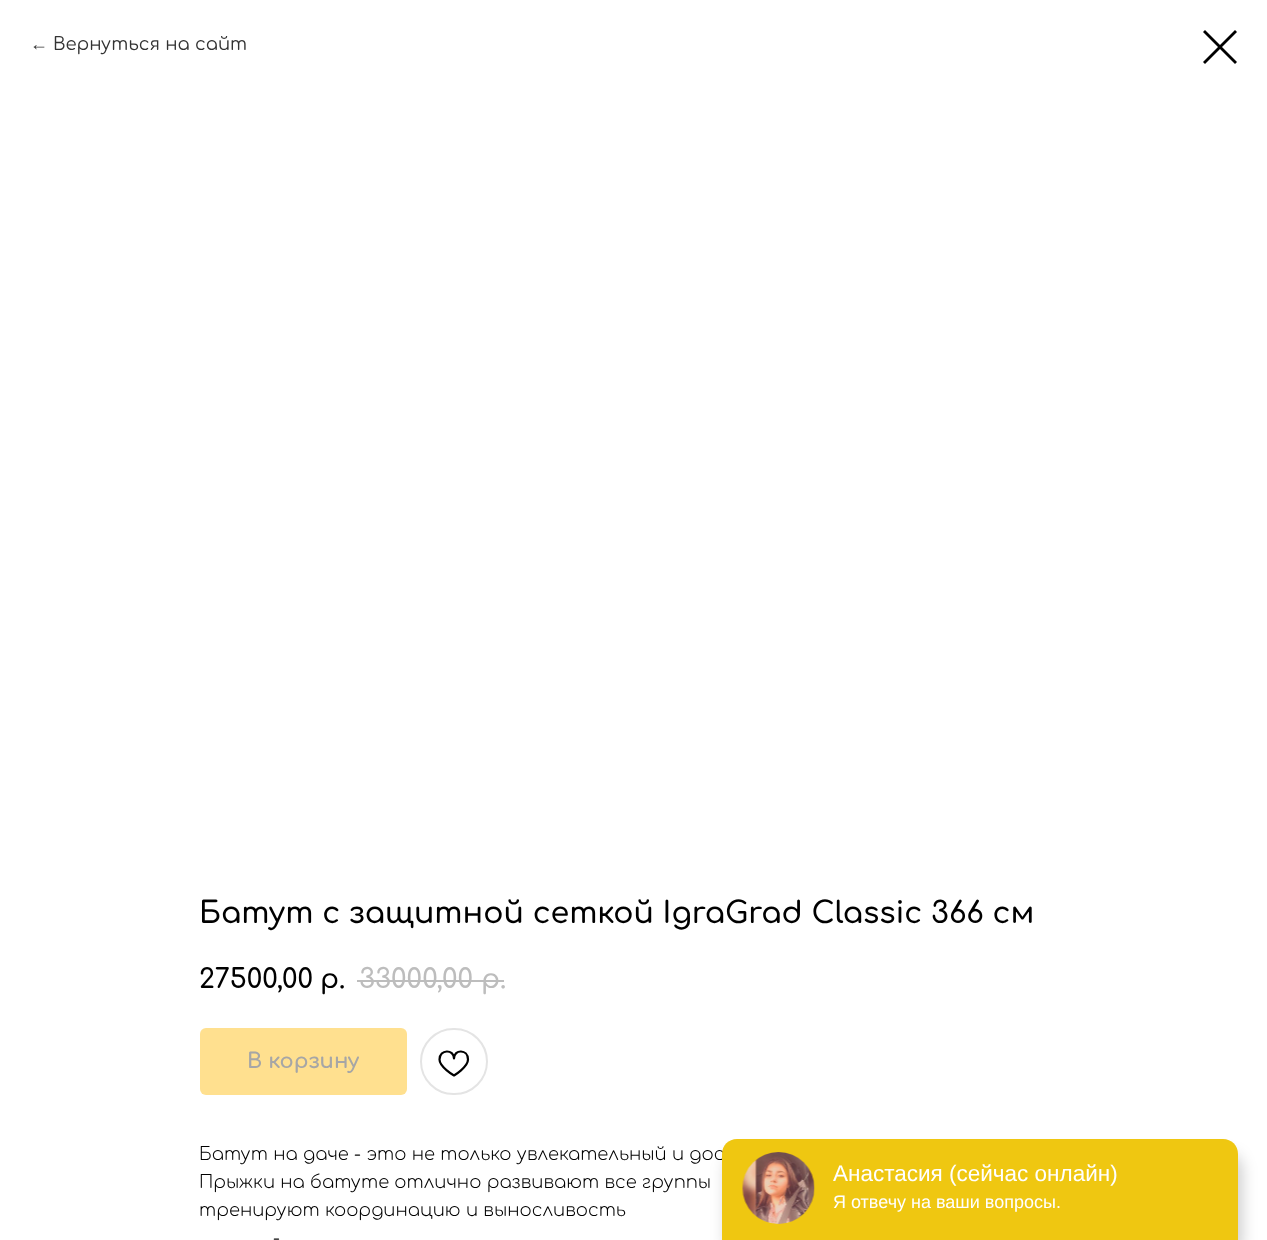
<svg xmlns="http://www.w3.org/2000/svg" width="1267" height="1240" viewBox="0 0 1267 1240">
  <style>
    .t1 { font: 18px Liberation Sans; fill: #333; }
    .t2 { font: 18px Comfortaa; fill: #333; }
    .t3 { font: 600 30px Comfortaa; fill: #000; }
    .t4 { font: 600 27px Comfortaa; fill: #000; }
    .t5 { font: 600 27px Comfortaa; fill: #bdbdbd; }
    .t6 { font: bold 21px Comfortaa; fill: #a6a6a6; }
    .t7 { font: 300 18px Comfortaa; fill: #000; }
    .t8 { font: 22.5px Liberation Sans; fill: #fff; }
    .t9 { font: 18px Liberation Sans; fill: #fff; }
  </style>
  <rect width="100%" height="100%" fill="#fff"/>
  <text x="30" y="50" class="t1">←</text>
  <text x="53" y="50" class="t2">Вернуться на сайт</text>
  <path d="M1203 32L1205 30L1237 62L1235 64Z" fill="#000" fill-rule="evenodd"/>
  <path d="M1235 30L1237 32L1205 64L1203 62Z" fill="#000" fill-rule="evenodd"/>
  <text x="199" y="923" class="t3">Батут с защитной сеткой IgraGrad Classic 366 см</text>
  <text x="199" y="988" class="t4">27500,00</text>
  <text x="320" y="988" class="t4">р.</text>
  <text x="359" y="988" class="t5">33000,00</text>
  <text x="481" y="988" class="t5">р.</text>
  <rect x="357" y="980" width="147" height="2" fill="#bdbdbd"/>
  <rect x="200" y="1028" width="207" height="67" rx="6" fill="#ffe08f"/>
  <text x="247" y="1068" class="t6">В корзину</text>
  <rect x="421" y="1029" width="66" height="65" rx="32.5" fill="none" stroke="#e4e4e4" stroke-width="2"/>
  <path d="M468 1059.5C468 1067 454 1075.5 454 1075.5C454 1075.5 439.5 1067 439.5 1059.5C439.5 1049 454 1049 454 1058.5C454 1049 468 1049 468 1059.5Z" fill="none" stroke="#000" stroke-width="2.2" stroke-linejoin="round"/>
  <text x="199" y="1160" class="t7">Батут на даче - это не только увлекательный и дос</text>
  <text x="199" y="1188" class="t7">Прыжки на батуте отлично развивают все группы</text>
  <text x="199" y="1216" class="t7">тренируют координацию и выносливость</text>
  <text x="273" y="1244" class="t7">-</text>
  <rect x="726" y="1154" width="516" height="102" rx="15" fill="#00000033" filter="blur(7.5px)"/>
  <path d="M737 1139H1223C1231.5 1139 1238 1145.5 1238 1154V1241H722V1154C722 1145.5 728.5 1139 737 1139Z" fill="#efc711"/>
  <image x="742" y="1152" width="73" height="72" href="images/1.png"/>
  <text x="833" y="1181" class="t8">Анастасия (сейчас онлайн)</text>
  <text x="833" y="1208" class="t9">Я отвечу на ваши вопросы.</text>
</svg>
